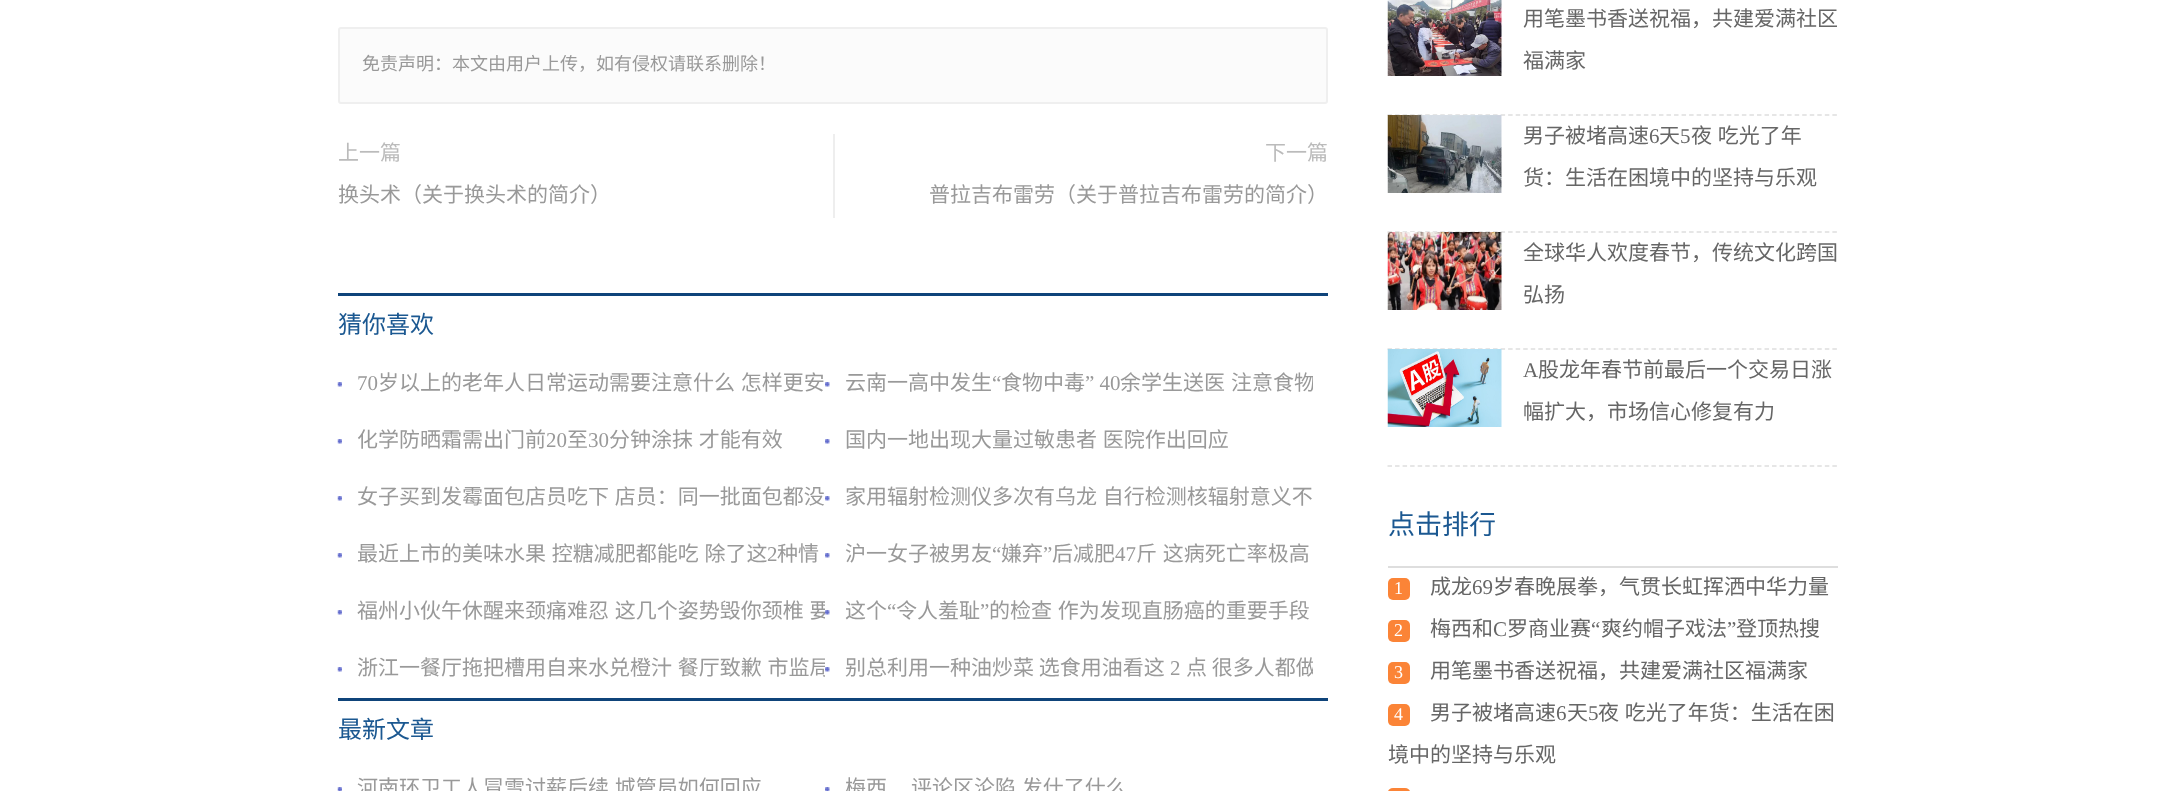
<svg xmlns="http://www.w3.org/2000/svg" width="2175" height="791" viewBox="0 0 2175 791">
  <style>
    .t1 { font: 18px Noto Sans CJK SC; fill: #999; }
    .t2 { font: 21px Noto Sans CJK SC; fill: #bbb; }
    .t3 { font: 21px Noto Sans CJK SC; fill: #999; }
    .t4 { font: 24px Noto Sans CJK SC; fill: #1b5891; }
    .t5 { font: 21px Liberation Serif; fill: #999; }
    .t6 { font: 21px Noto Sans CJK SC; fill: #666; }
    .t7 { font: 21px Liberation Serif; fill: #666; }
    .t8 { font: 27px Noto Sans CJK SC; fill: #1b5891; }
    .t9 { font: 18px Liberation Serif; fill: #fff; }
  </style>
  <defs>
    <clipPath id="clip1"><rect x="825" y="356" width="488" height="57"/></clipPath>
    <clipPath id="clip2"><rect x="338" y="584" width="487" height="57"/></clipPath>
    <clipPath id="clip3"><rect x="338" y="641" width="487" height="57"/></clipPath>
    <clipPath id="clip4"><rect x="825" y="641" width="488" height="57"/></clipPath>
  </defs>
  <rect width="100%" height="100%" fill="#fff"/>
  <rect x="339" y="28" width="988" height="75" rx="2" fill="#fbfbfb" stroke="#efefef" stroke-width="2"/>
  <text x="362" y="70" class="t1">免责声明：本文由用户上传，如有侵权请联系删除！</text>
  <text x="338" y="160" class="t2">上一篇</text>
  <text x="338" y="202" class="t3">换头术（关于换头术的简介）</text>
  <rect x="833" y="134" width="2" height="84" fill="#eee"/>
  <text x="1265" y="160" class="t2">下一篇</text>
  <text x="929" y="202" class="t3">普拉吉布雷劳（关于普拉吉布雷劳的简介）</text>
  <rect x="338" y="293" width="990" height="3" fill="#0f447a"/>
  <text x="338" y="333" class="t4">猜你喜欢</text>
  <image x="337" y="382" width="5" height="5" href="images/1.png"/>
  <text x="357" y="390" class="t5">70</text>
  <text x="378" y="390" word-spacing="1" class="t3">岁以上的老年人日常运动需要注意什么 怎样更安</text>
  <image x="825" y="382" width="5" height="5" href="images/2.png"/>
  <text x="845" y="390" class="t3">云南一高中发生</text>
  <text x="992" y="390" class="t5">“</text>
  <text x="1001" y="390" class="t3">食物中毒</text>
  <text x="1085" y="390" class="t5">” 40</text>
  <text x="1120" y="390" class="t3">余学生送医</text>
  <g clip-path="url(#clip1)">
    <text x="1231" y="390" class="t3">注意食物</text>
  </g>
  <image x="337" y="439" width="5" height="5" href="images/1.png"/>
  <text x="357" y="447" class="t3">化学防晒霜需出门前</text>
  <text x="546" y="447" class="t5">20</text>
  <text x="567" y="447" class="t3">至</text>
  <text x="588" y="447" class="t5">30</text>
  <text x="609" y="447" word-spacing="1" class="t3">分钟涂抹 才能有效</text>
  <image x="825" y="439" width="5" height="5" href="images/2.png"/>
  <text x="845" y="447" word-spacing="1" class="t3">国内一地出现大量过敏患者 医院作出回应</text>
  <image x="337" y="496" width="5" height="5" href="images/1.png"/>
  <text x="357" y="504" word-spacing="1" class="t3">女子买到发霉面包店员吃下 店员：同一批面包都没</text>
  <image x="825" y="496" width="5" height="5" href="images/2.png"/>
  <text x="845" y="504" word-spacing="1" class="t3">家用辐射检测仪多次有乌龙 自行检测核辐射意义不</text>
  <image x="337" y="553" width="5" height="5" href="images/1.png"/>
  <text x="357" y="561" word-spacing="1" class="t3">最近上市的美味水果 控糖减肥都能吃 除了这</text>
  <text x="767" y="561" class="t5">2</text>
  <text x="777" y="561" class="t3">种情</text>
  <image x="825" y="553" width="5" height="5" href="images/2.png"/>
  <text x="845" y="561" class="t3">沪一女子被男友</text>
  <text x="992" y="561" class="t5">“</text>
  <text x="1001" y="561" class="t3">嫌弃</text>
  <text x="1043" y="561" class="t5">”</text>
  <text x="1052" y="561" class="t3">后减肥</text>
  <text x="1115" y="561" class="t5">47</text>
  <text x="1136" y="561" word-spacing="1" class="t3">斤 这病死亡率极高</text>
  <image x="337" y="610" width="5" height="5" href="images/1.png"/>
  <g clip-path="url(#clip2)">
    <text x="357" y="618" word-spacing="1" class="t3">福州小伙午休醒来颈痛难忍 这几个姿势毁你颈椎 要</text>
  </g>
  <image x="825" y="610" width="5" height="5" href="images/2.png"/>
  <text x="845" y="618" class="t3">这个</text>
  <text x="887" y="618" class="t5">“</text>
  <text x="896" y="618" class="t3">令人羞耻</text>
  <text x="980" y="618" class="t5">”</text>
  <text x="989" y="618" word-spacing="1" class="t3">的检查 作为发现直肠癌的重要手段</text>
  <image x="337" y="667" width="5" height="5" href="images/1.png"/>
  <g clip-path="url(#clip3)">
    <text x="357" y="675" word-spacing="1" class="t3">浙江一餐厅拖把槽用自来水兑橙汁 餐厅致歉 市监局</text>
  </g>
  <image x="825" y="667" width="5" height="5" href="images/2.png"/>
  <text x="845" y="675" class="t3">别总利用一种油炒菜 选食用油看这</text>
  <text x="1170" y="675" class="t5">2</text>
  <g clip-path="url(#clip4)">
    <text x="1186" y="675" class="t3">点 很多人都做</text>
  </g>
  <rect x="338" y="698" width="990" height="3" fill="#0f447a"/>
  <text x="338" y="738" class="t4">最新文章</text>
  <image x="337" y="787" width="5" height="4" href="images/3.png"/>
  <text x="357" y="795" word-spacing="1" class="t3">河南环卫工人冒雪讨薪后续 城管局如何回应</text>
  <image x="825" y="787" width="5" height="4" href="images/4.png"/>
  <text x="845" y="795" class="t3">梅西</text>
  <text x="911" y="795" word-spacing="1" class="t3">评论区沦陷 发什了什么</text>
  <path d="M1387.5 115H1837.5" fill="none" stroke="#dedede" stroke-width="1.5" stroke-dasharray="4.5 3.04"/>
  <image x="1387" y="0" width="115" height="76" href="images/5.png"/>
  <text x="1523" y="26" class="t6">用笔墨书香送祝福，共建爱满社区</text>
  <text x="1523" y="68" class="t6">福满家</text>
  <path d="M1387.5 232H1837.5" fill="none" stroke="#dedede" stroke-width="1.5" stroke-dasharray="4.5 3.04"/>
  <image x="1387" y="115" width="115" height="78" href="images/6.png"/>
  <text x="1523" y="143" class="t6">男子被堵高速</text>
  <text x="1649" y="143" class="t7">6</text>
  <text x="1659" y="143" class="t6">天</text>
  <text x="1680" y="143" class="t7">5</text>
  <text x="1691" y="143" word-spacing="1" class="t6">夜 吃光了年</text>
  <text x="1523" y="185" class="t6">货：生活在困境中的坚持与乐观</text>
  <path d="M1387.5 349H1837.5" fill="none" stroke="#dedede" stroke-width="1.5" stroke-dasharray="4.5 3.04"/>
  <image x="1387" y="232" width="115" height="78" href="images/7.png"/>
  <text x="1523" y="260" class="t6">全球华人欢度春节，传统文化跨国</text>
  <text x="1523" y="302" class="t6">弘扬</text>
  <path d="M1387.5 466H1837.5" fill="none" stroke="#dedede" stroke-width="1.5" stroke-dasharray="4.5 3.04"/>
  <image x="1387" y="349" width="115" height="78" href="images/8.png"/>
  <text x="1523" y="377" class="t7">A</text>
  <text x="1538" y="377" class="t6">股龙年春节前最后一个交易日涨</text>
  <text x="1523" y="419" class="t6">幅扩大，市场信心修复有力</text>
  <rect x="1388" y="566" width="450" height="2" fill="#dedede"/>
  <text x="1388" y="534" class="t8">点击排行</text>
  <rect x="1388" y="578" width="22" height="22" rx="5" fill="#fb8437"/>
  <text x="1394" y="594" class="t9">1</text>
  <text x="1430" y="594" class="t6">成龙</text>
  <text x="1472" y="594" class="t7">69</text>
  <text x="1493" y="594" class="t6">岁春晚展拳，气贯长虹挥洒中华力量</text>
  <rect x="1388" y="620" width="22" height="22" rx="5" fill="#fb8437"/>
  <text x="1394" y="636" class="t9">2</text>
  <text x="1430" y="636" class="t6">梅西和</text>
  <text x="1493" y="636" class="t7">C</text>
  <text x="1507" y="636" class="t6">罗商业赛</text>
  <text x="1591" y="636" class="t7">“</text>
  <text x="1601" y="636" class="t6">爽约帽子戏法</text>
  <text x="1727" y="636" class="t7">”</text>
  <text x="1736" y="636" class="t6">登顶热搜</text>
  <rect x="1388" y="662" width="22" height="22" rx="5" fill="#fb8437"/>
  <text x="1394" y="678" class="t9">3</text>
  <text x="1430" y="678" class="t6">用笔墨书香送祝福，共建爱满社区福满家</text>
  <rect x="1388" y="704" width="22" height="22" rx="5" fill="#fb8437"/>
  <text x="1394" y="720" class="t9">4</text>
  <text x="1430" y="720" class="t6">男子被堵高速</text>
  <text x="1556" y="720" class="t7">6</text>
  <text x="1567" y="720" class="t6">天</text>
  <text x="1588" y="720" class="t7">5</text>
  <text x="1598" y="720" word-spacing="1" class="t6">夜 吃光了年货：生活在困</text>
  <text x="1388" y="762" class="t6">境中的坚持与乐观</text>
  <rect x="1388" y="788" width="22" height="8" rx="5" fill="#fb8437"/>
</svg>
